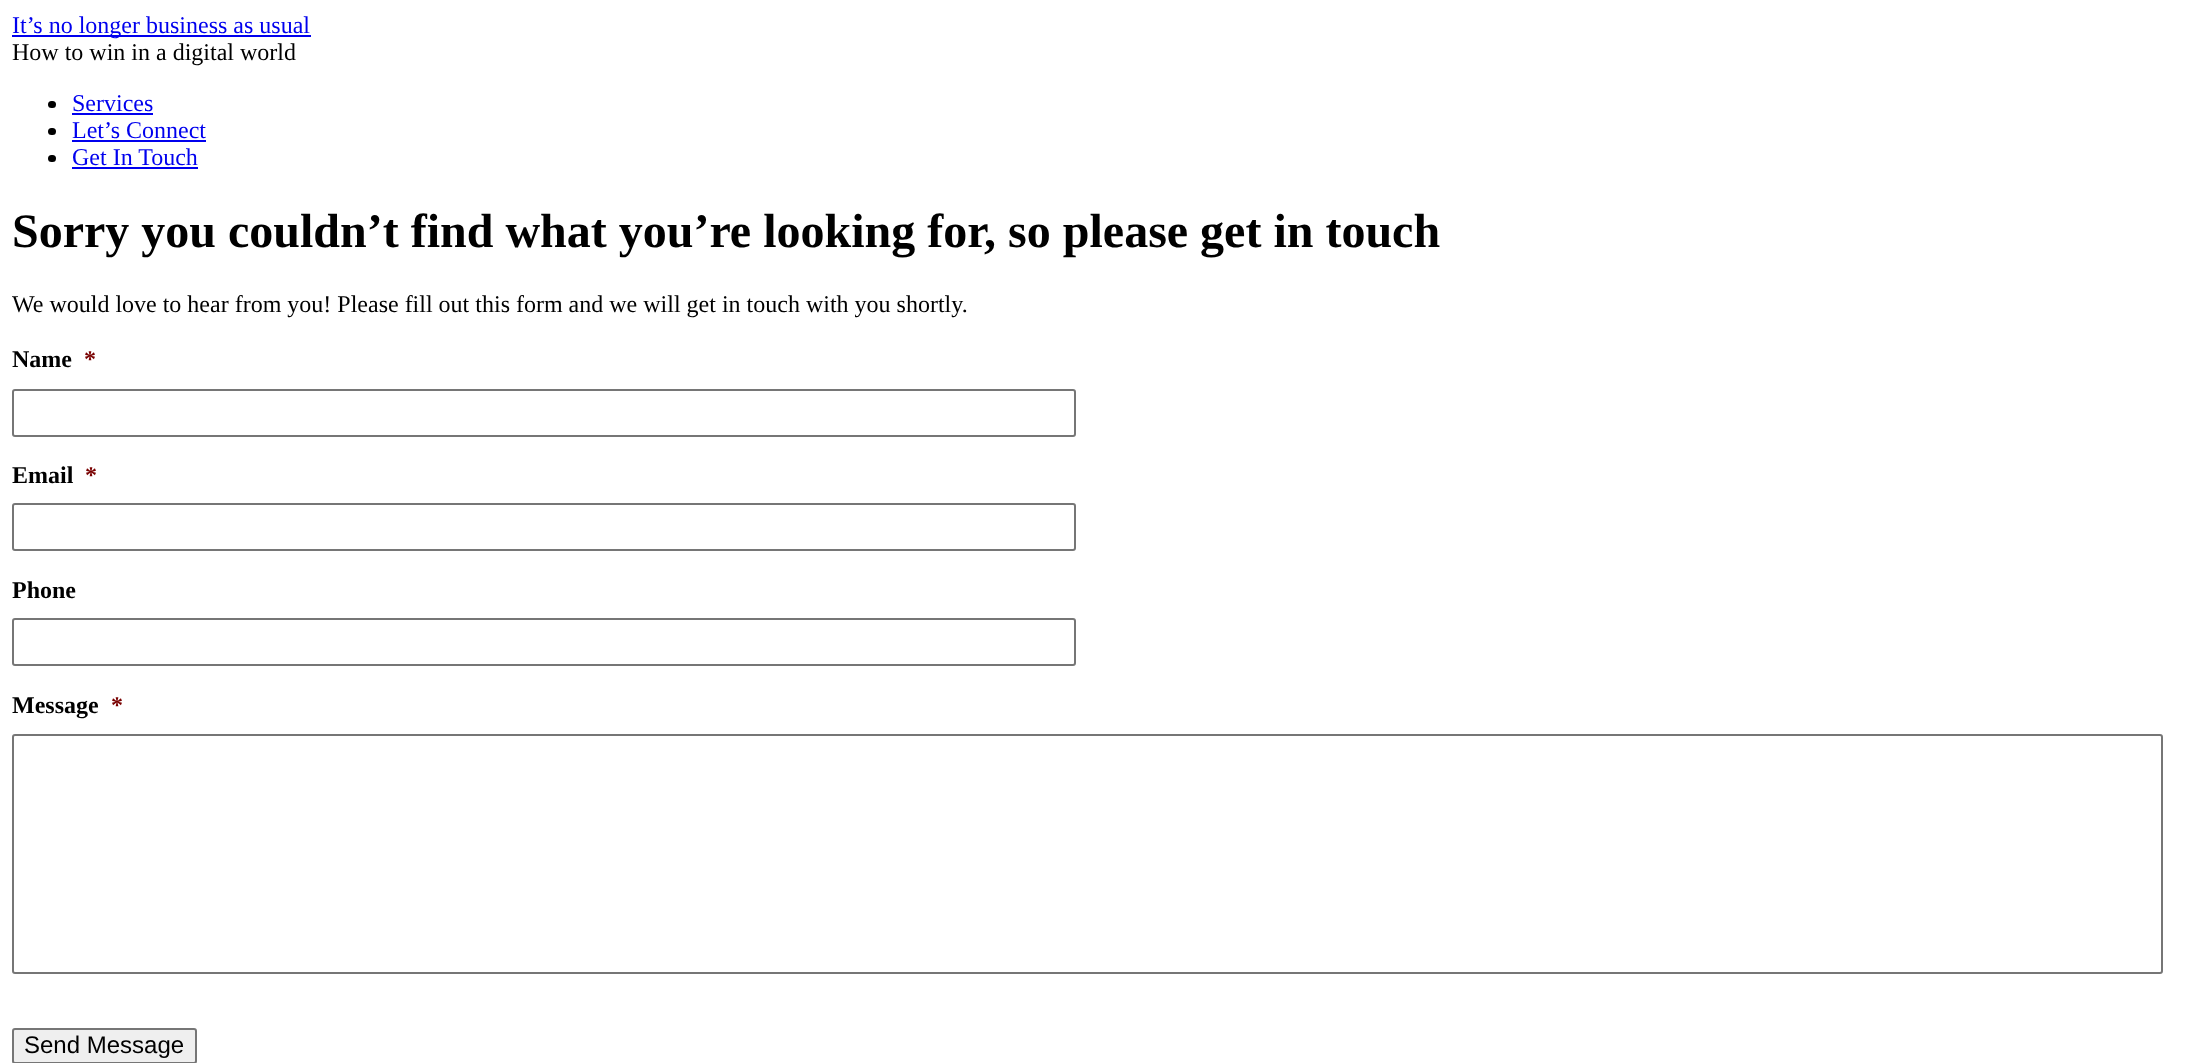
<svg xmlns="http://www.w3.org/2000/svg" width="2198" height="1063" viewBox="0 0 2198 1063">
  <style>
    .t1 { font: 24px Liberation Serif; fill: #00e; }
    .t2 { font: 24px Liberation Serif; fill: #000; }
    .t3 { font: bold 48px Liberation Serif; fill: #000; }
    .t4 { font: bold 24px Liberation Serif; fill: #000; }
    .t5 { font: bold 24px Liberation Serif; fill: #790000; }
    .t6 { font: 24px Liberation Sans; fill: #000; }
  </style>
  <rect width="100%" height="100%" fill="#fff"/>
  <rect x="12" y="35" width="299" height="2" fill="#00e"/>
  <text x="12" y="33" class="t1">It’s no longer business as usual</text>
  <text x="12" y="60" class="t2">How to win in a digital world</text>
  <rect x="48" y="101" width="8" height="7" rx="3.5" fill="#000"/>
  <text x="72" y="111" class="t1">Services</text>
  <rect x="72" y="113" width="81" height="2" fill="#00e"/>
  <rect x="48" y="128" width="8" height="7" rx="3.5" fill="#000"/>
  <text x="72" y="138" class="t1">Let’s Connect</text>
  <rect x="72" y="140" width="134" height="2" fill="#00e"/>
  <rect x="48" y="155" width="8" height="7" rx="3.5" fill="#000"/>
  <text x="72" y="165" class="t1">Get In Touch</text>
  <rect x="72" y="167" width="126" height="2" fill="#00e"/>
  <text x="12" y="247" class="t3">Sorry you couldn’t find what you’re looking for, so please get in touch</text>
  <text x="12" y="312" class="t2">We would love to hear from you! Please fill out this form and we will get in touch with you shortly.</text>
  <text x="12" y="367" class="t4">Name</text>
  <text x="84" y="367" class="t5">*</text>
  <rect x="13" y="390" width="1062" height="46" rx="2" fill="none" stroke="#767676" stroke-width="2"/>
  <text x="12" y="483" class="t4">Email</text>
  <text x="85" y="483" class="t5">*</text>
  <rect x="13" y="504" width="1062" height="46" rx="2" fill="none" stroke="#767676" stroke-width="2"/>
  <text x="12" y="598" class="t4">Phone</text>
  <rect x="13" y="619" width="1062" height="46" rx="2" fill="none" stroke="#767676" stroke-width="2"/>
  <text x="12" y="713" class="t4">Message</text>
  <text x="111" y="713" class="t5">*</text>
  <rect x="13" y="735" width="2149" height="238" rx="2" fill="none" stroke="#767676" stroke-width="2"/>
  <rect x="13" y="1029" width="183" height="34" rx="2" fill="#efefef" stroke="#767676" stroke-width="2"/>
  <text x="24" y="1053" class="t6">Send Message</text>
</svg>
